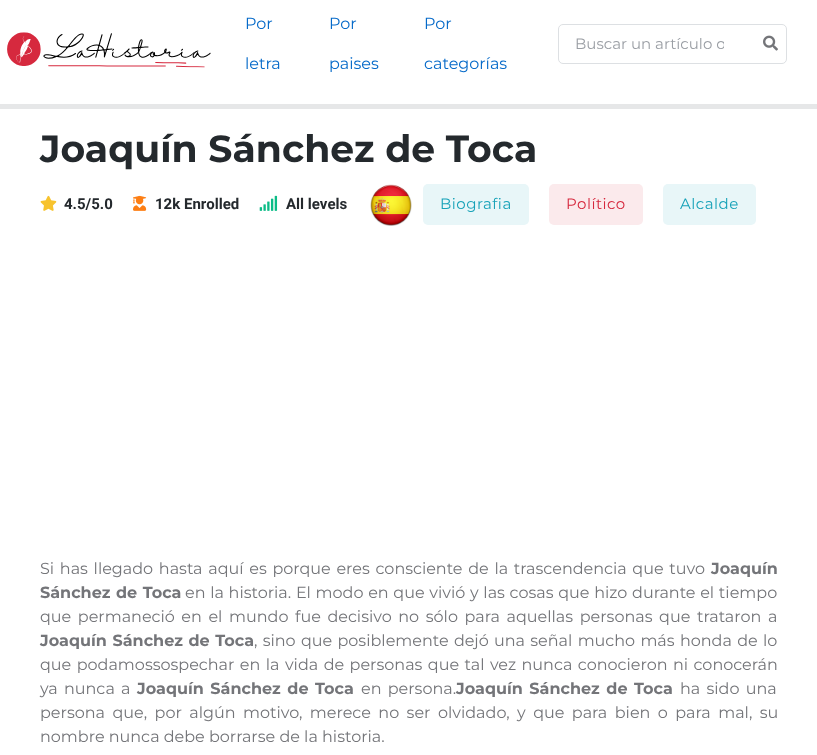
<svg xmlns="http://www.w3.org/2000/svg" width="817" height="755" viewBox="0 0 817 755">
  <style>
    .t1 { font: 16px Montserrat; fill: #066ac9; }
    .t2 { font: 15px Montserrat; fill: #9a9ea4; }
    .t3 { font: bold 37.75px Montserrat; fill: #24292d; }
    .t4 { font: bold 15px Heebo; fill: #24292d; }
    .t5 { font: 15px Montserrat; letter-spacing: 0.5px; fill: #17a2b8; }
    .t6 { font: 15px Montserrat; letter-spacing: 0.5px; fill: #d6293e; }
    .t7 { font: 16px Montserrat; fill: #747579; }
    .t8 { font: bold 16px Montserrat; fill: #747579; }
  </style>
  <defs>
    <clipPath id="clip1"><rect x="575" y="34" width="149" height="19"/></clipPath>
  </defs>
  <rect width="100%" height="100%" fill="#fff"/>
  <image x="7" y="32" width="204" height="36" href="images/1.png"/>
  <text x="245" y="29" class="t1">Por</text>
  <text x="245" y="69" class="t1">letra</text>
  <text x="329" y="29" class="t1">Por</text>
  <text x="329" y="69" class="t1">paises</text>
  <text x="424" y="29" class="t1">Por</text>
  <text x="424" y="69" class="t1">categorías</text>
  <rect x="558.5" y="24.5" width="228" height="39" rx="4.5" fill="none" stroke="#dde0e3"/>
  <g clip-path="url(#clip1)">
    <text x="575" y="49" class="t2">Buscar un artículo o</text>
  </g>
  <image x="763" y="35" width="15" height="16" href="images/2.png"/>
  <rect x="0" y="104" width="817" height="5" fill="#e6e7e8"/>
  <text x="40" y="162" class="t3">Joaquín Sánchez de Toca</text>
  <image x="40" y="195" width="17" height="16" href="images/3.png"/>
  <text x="64" y="209" class="t4">4.5/5.0</text>
  <image x="133" y="195" width="14" height="16" href="images/4.png"/>
  <text x="155" y="209" class="t4">12k Enrolled</text>
  <image x="259" y="195" width="19" height="16" href="images/5.png"/>
  <text x="286" y="209" class="t4">All levels</text>
  <image x="370" y="184" width="42" height="42" href="images/6.png"/>
  <rect x="423" y="184" width="106" height="41" rx="5" fill="#e8f6f8"/>
  <text x="440" y="209" class="t5">Biografia</text>
  <rect x="549" y="184" width="94" height="41" rx="5" fill="#fbeaec"/>
  <text x="566" y="209" class="t6">Político</text>
  <rect x="663" y="184" width="93" height="41" rx="5" fill="#e8f6f8"/>
  <text x="680" y="209" class="t5">Alcalde</text>
  <text x="40" y="574" word-spacing="1.5" class="t7">Si has llegado hasta aquí es porque eres consciente de la trascendencia que tuvo</text>
  <text x="711" y="574" class="t8">Joaquín</text>
  <text x="40" y="598" word-spacing="1" class="t8">Sánchez de Toca</text>
  <text x="185" y="598" word-spacing="0.5" class="t7">en la historia. El modo en que vivió y las cosas que hizo durante el tiempo</text>
  <text x="40" y="622" word-spacing="2.4" class="t7">que permaneció en el mundo fue decisivo no sólo para aquellas personas que trataron a</text>
  <text x="40" y="646" word-spacing="1.1" class="t8">Joaquín Sánchez de Toca</text>
  <text x="254" y="646" word-spacing="1.1" class="t7">, sino que posiblemente dejó una señal mucho más honda de lo</text>
  <text x="40" y="670" word-spacing="1.25" class="t7">que podamossospechar en la vida de personas que tal vez nunca conocieron ni conocerán</text>
  <text x="40" y="694" word-spacing="2" class="t7">ya nunca a</text>
  <text x="137" y="694" word-spacing="2" class="t8">Joaquín Sánchez de Toca</text>
  <text x="361" y="694" word-spacing="2" class="t7">en persona.</text>
  <text x="456" y="694" word-spacing="2" class="t8">Joaquín Sánchez de Toca</text>
  <text x="680" y="694" word-spacing="2" class="t7">ha sido una</text>
  <text x="40" y="718" word-spacing="3.25" class="t7">persona que, por algún motivo, merece no ser olvidado, y que para bien o para mal, su</text>
  <text x="40" y="742" class="t7">nombre nunca debe borrarse de la historia.</text>
</svg>
